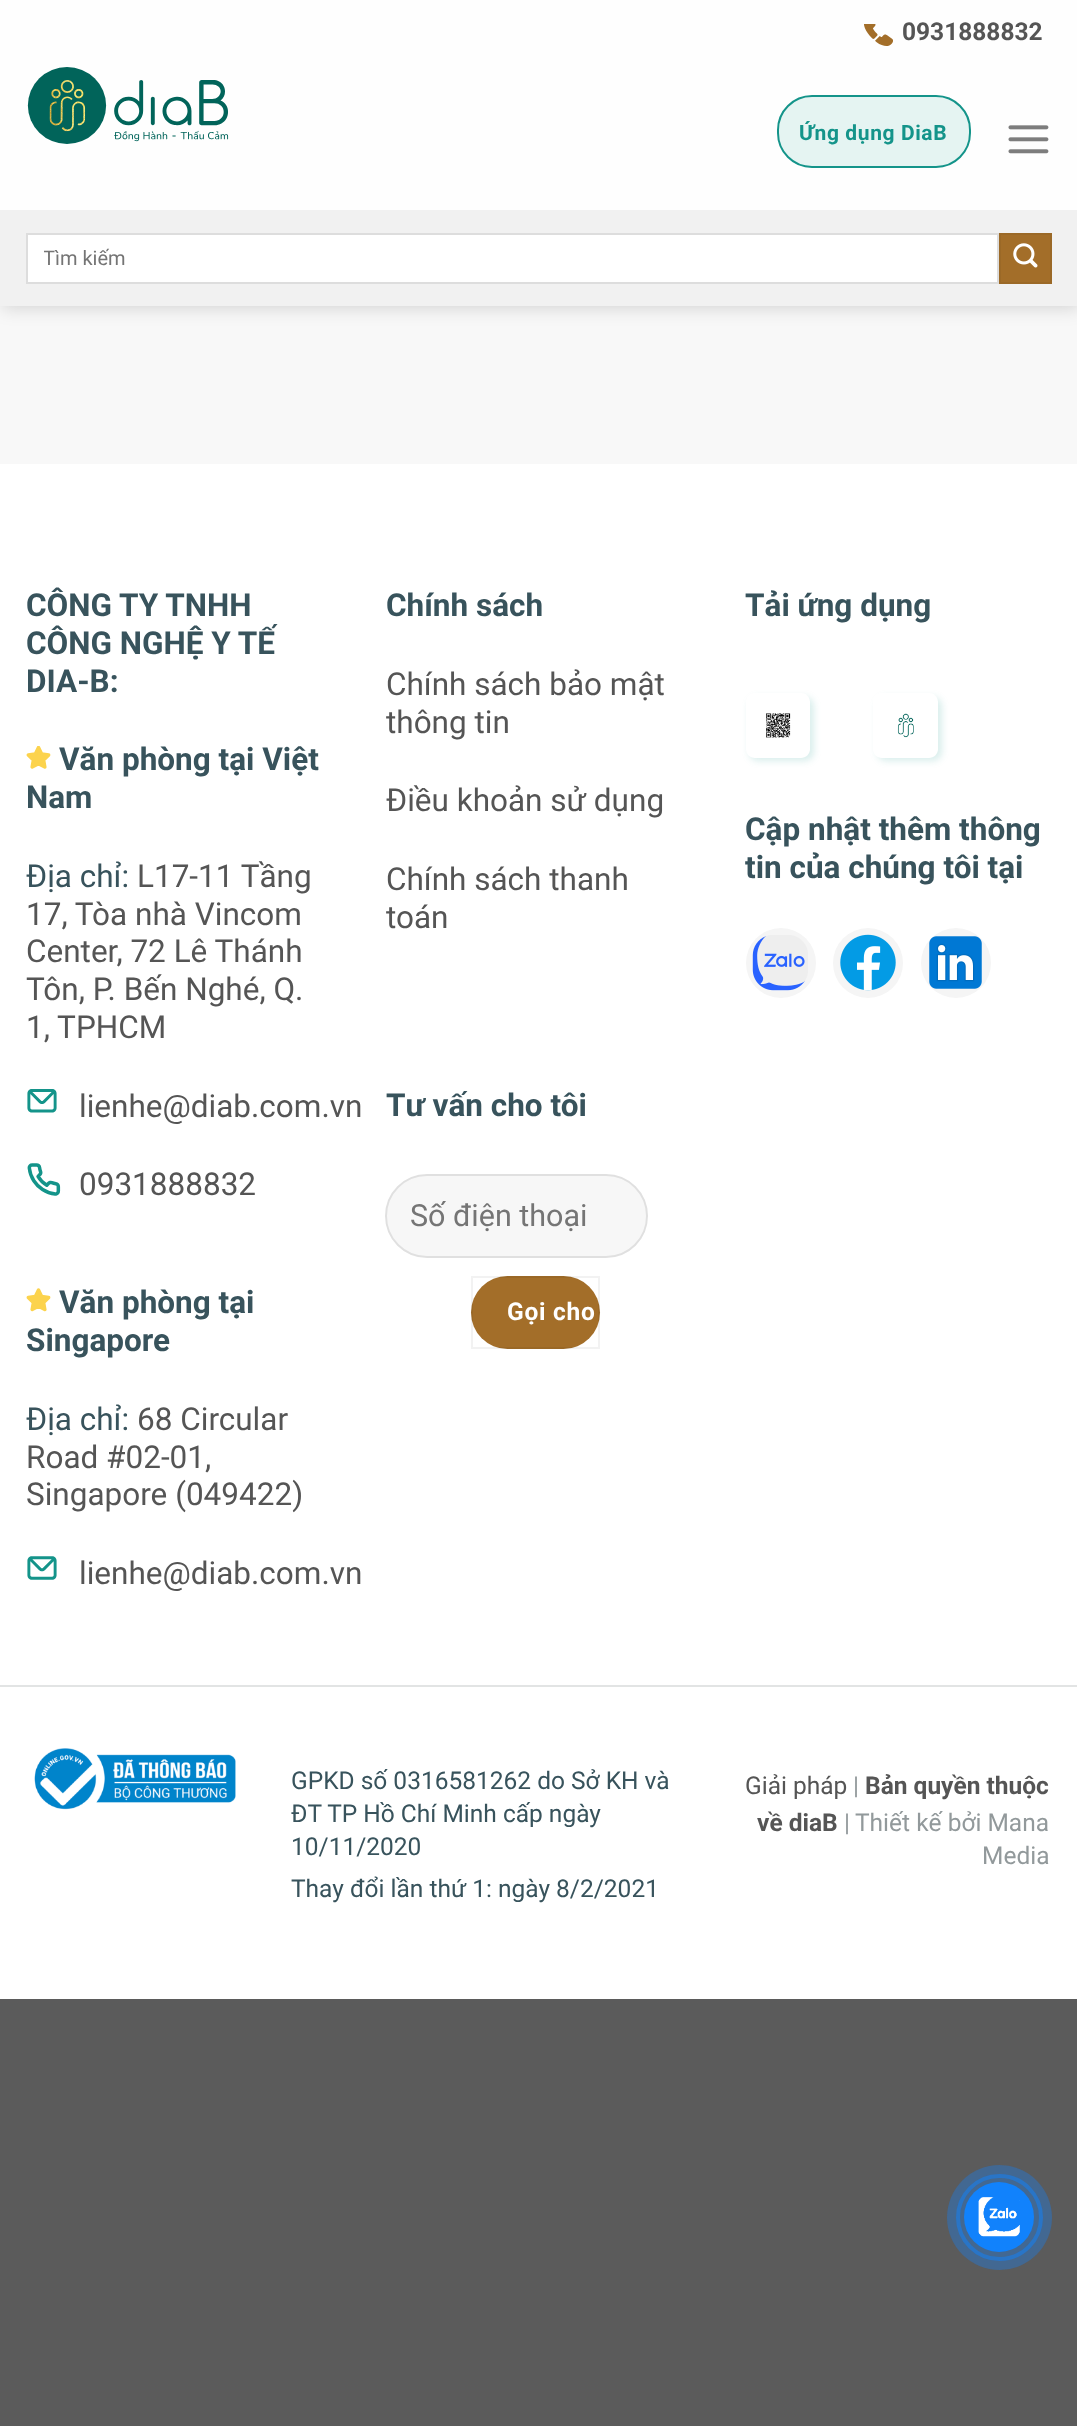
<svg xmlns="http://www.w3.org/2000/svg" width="1077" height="2426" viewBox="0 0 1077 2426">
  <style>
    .t1 { font: bold 24.5px Roboto; fill: #555; }
    .t2 { font: bold 21px Roboto; letter-spacing: 0.6px; fill: #14948a; }
    .t3 { font: 20px Roboto; fill: #757575; }
    .t4 { font: bold 31.5px Roboto; fill: #38535c; }
    .t5 { font: 31.5px Roboto; fill: #38535c; }
    .t6 { font: 31.5px Roboto; fill: #555; }
    .t7 { font: 30.5px Roboto; fill: #757575; }
    .t8 { font: bold 24.5px Roboto; letter-spacing: 0.75px; fill: #fff; }
    .t9 { font: 24.5px Roboto; fill: #38535c; }
    .t10 { font: 24.5px Roboto; fill: #555; }
    .t11 { font: 24.5px Roboto; fill: #92999b; }
  </style>
  <defs>
    <clipPath id="clip1"><rect x="44" y="245" width="931" height="25"/></clipPath>
    <clipPath id="clip2"><path d="M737 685H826V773H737ZM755 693H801C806 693 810 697 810 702V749C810 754 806 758 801 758H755C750 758 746 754 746 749V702C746 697 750 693 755 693Z" clip-rule="evenodd"/></clipPath>
    <clipPath id="clip3"><path d="M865 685H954V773H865ZM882 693H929C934 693 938 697 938 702V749C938 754 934 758 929 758H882C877 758 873 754 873 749V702C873 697 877 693 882 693Z" clip-rule="evenodd"/></clipPath>
  </defs>
  <rect width="100%" height="100%" fill="#5b5b5b"/>
  <rect x="0" y="306" width="1077" height="158" fill="#f8f8f8"/>
  <rect x="2" y="2" width="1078" height="306" fill="#00000026" filter="blur(9px)"/>
  <rect x="0" y="0" width="1077" height="210" fill="#fefefe"/>
  <image x="864" y="24" width="29" height="22" href="images/1.png"/>
  <text x="902" y="40" class="t1">0931888832</text>
  <image x="27" y="67" width="202" height="77" href="images/2.png"/>
  <rect x="778" y="96" width="192" height="71" rx="34" fill="#e5f4f2" stroke="#14948a" stroke-width="2"/>
  <text x="799" y="140" class="t2">Ứng dụng DiaB</text>
  <image x="1008" y="125" width="41" height="29" href="images/3.png"/>
  <rect x="0" y="210" width="1077" height="96" fill="#f1f1f1"/>
  <rect x="27" y="234" width="971" height="49" fill="#fff" stroke="#ddd" stroke-width="2"/>
  <g clip-path="url(#clip1)">
    <text x="43" y="265" class="t3">Tìm kiếm</text>
  </g>
  <rect x="1000" y="234" width="51" height="49" fill="#a36e29" stroke="#9b6927" stroke-width="2"/>
  <image x="1013" y="243" width="25" height="25" href="images/4.png"/>
  <rect x="0" y="464" width="1077" height="1535" fill="#fff"/>
  <rect x="0" y="1685" width="1077" height="2" fill="#e2e4e4"/>
  <text x="26" y="616" class="t4">CÔNG TY TNHH</text>
  <text x="26" y="654" class="t4">CÔNG NGHỆ Y TẾ</text>
  <text x="26" y="692" class="t4">DIA-B:</text>
  <image x="26" y="746" width="25" height="23" href="images/5.png"/>
  <text x="59" y="770" class="t4">Văn phòng tại Việt</text>
  <text x="26" y="808" class="t4">Nam</text>
  <text x="26" y="887" class="t5">Địa chỉ:</text>
  <text x="137" y="887" class="t6">L17-11 Tầng</text>
  <text x="26" y="925" class="t6">17, Tòa nhà Vincom</text>
  <text x="26" y="962" class="t6">Center, 72 Lê Thánh</text>
  <text x="26" y="1000" class="t6">Tôn, P. Bến Nghé, Q.</text>
  <text x="26" y="1038" class="t6">1, TPHCM</text>
  <image x="27" y="1089" width="30" height="24" href="images/6.png"/>
  <text x="79" y="1117" class="t6">lienhe@diab.com.vn</text>
  <image x="27" y="1163" width="34" height="33" href="images/7.png"/>
  <text x="79" y="1195" class="t6">0931888832</text>
  <image x="26" y="1288" width="25" height="24" href="images/8.png"/>
  <text x="59" y="1313" class="t4">Văn phòng tại</text>
  <text x="26" y="1351" class="t4">Singapore</text>
  <text x="26" y="1430" class="t5">Địa chỉ:</text>
  <text x="137" y="1430" class="t6">68 Circular</text>
  <text x="26" y="1468" class="t6">Road #02-01,</text>
  <text x="26" y="1505" class="t6">Singapore (049422)</text>
  <image x="27" y="1556" width="30" height="24" href="images/9.png"/>
  <text x="79" y="1584" class="t6">lienhe@diab.com.vn</text>
  <text x="386" y="616" class="t4">Chính sách</text>
  <text x="386" y="695" class="t6">Chính sách bảo mật</text>
  <text x="386" y="733" class="t6">thông tin</text>
  <text x="386" y="811" class="t6">Điều khoản sử dụng</text>
  <text x="386" y="890" class="t6">Chính sách thanh</text>
  <text x="386" y="928" class="t6">toán</text>
  <text x="386" y="1116" class="t4">Tư vấn cho tôi</text>
  <rect x="385" y="1174" width="263" height="84" rx="42" fill="#f7f7f7"/>
  <rect x="386" y="1175" width="261" height="82" rx="41" fill="none" stroke="#00000017" stroke-width="2"/>
  <text x="410" y="1226" class="t7">Số điện thoại</text>
  <rect x="471" y="1276" width="129" height="73" rx="36.5" fill="#a36e29"/>
  <rect x="472" y="1277" width="127" height="71" fill="none" stroke="#0000000d" stroke-width="2"/>
  <text x="507" y="1320" class="t8">Gọi cho</text>
  <text x="745" y="616" class="t4">Tải ứng dụng</text>
  <g clip-path="url(#clip2)">
    <rect x="749" y="697" width="65" height="64" rx="9" fill="#14948a29" filter="blur(3.5px)"/>
  </g>
  <image x="766" y="713" width="25" height="25" href="images/10.png"/>
  <g clip-path="url(#clip3)">
    <rect x="877" y="697" width="65" height="64" rx="9" fill="#14948a29" filter="blur(3.5px)"/>
  </g>
  <image x="897" y="713" width="17" height="25" href="images/11.png"/>
  <text x="745" y="840" class="t4">Cập nhật thêm thông</text>
  <text x="745" y="878" class="t4">tin của chúng tôi tại</text>
  <circle cx="781" cy="963" r="35" fill="#f5f5f5"/>
  <image x="752" y="935" width="56" height="56" href="images/12.png"/>
  <circle cx="868" cy="963" r="35" fill="#f5f5f5"/>
  <image x="840" y="934" width="56" height="57" href="images/13.png"/>
  <circle cx="956" cy="963" r="35" fill="#f5f5f5"/>
  <image x="929" y="936" width="53" height="53" href="images/14.png"/>
  <image x="34" y="1748" width="202" height="62" href="images/15.png"/>
  <text x="291" y="1789" class="t9">GPKD số 0316581262 do Sở KH và</text>
  <text x="291" y="1822" class="t9">ĐT TP Hồ Chí Minh cấp ngày</text>
  <text x="291" y="1855" class="t9">10/11/2020</text>
  <text x="291" y="1897" class="t9">Thay đổi lần thứ 1: ngày 8/2/2021</text>
  <text x="745" y="1794" class="t10">Giải pháp</text>
  <text x="853" y="1794" class="t11">|</text>
  <text x="865" y="1794" class="t1">Bản quyền thuộc</text>
  <text x="757" y="1831" class="t1">về diaB</text>
  <text x="844" y="1831" class="t11">|</text>
  <text x="855" y="1831" class="t11">Thiết kế bởi Mana</text>
  <text x="982" y="1864" class="t11">Media</text>
  <circle cx="999.5" cy="2217.5" r="41.5" fill="none" stroke="#366fac" stroke-width="4"/>
  <circle cx="999.5" cy="2217.5" r="52.5" fill="#1182fc57"/>
  <circle cx="999" cy="2217" r="35" fill="#1182fc"/>
  <image x="978" y="2197" width="42" height="40" href="images/16.png"/>
</svg>
